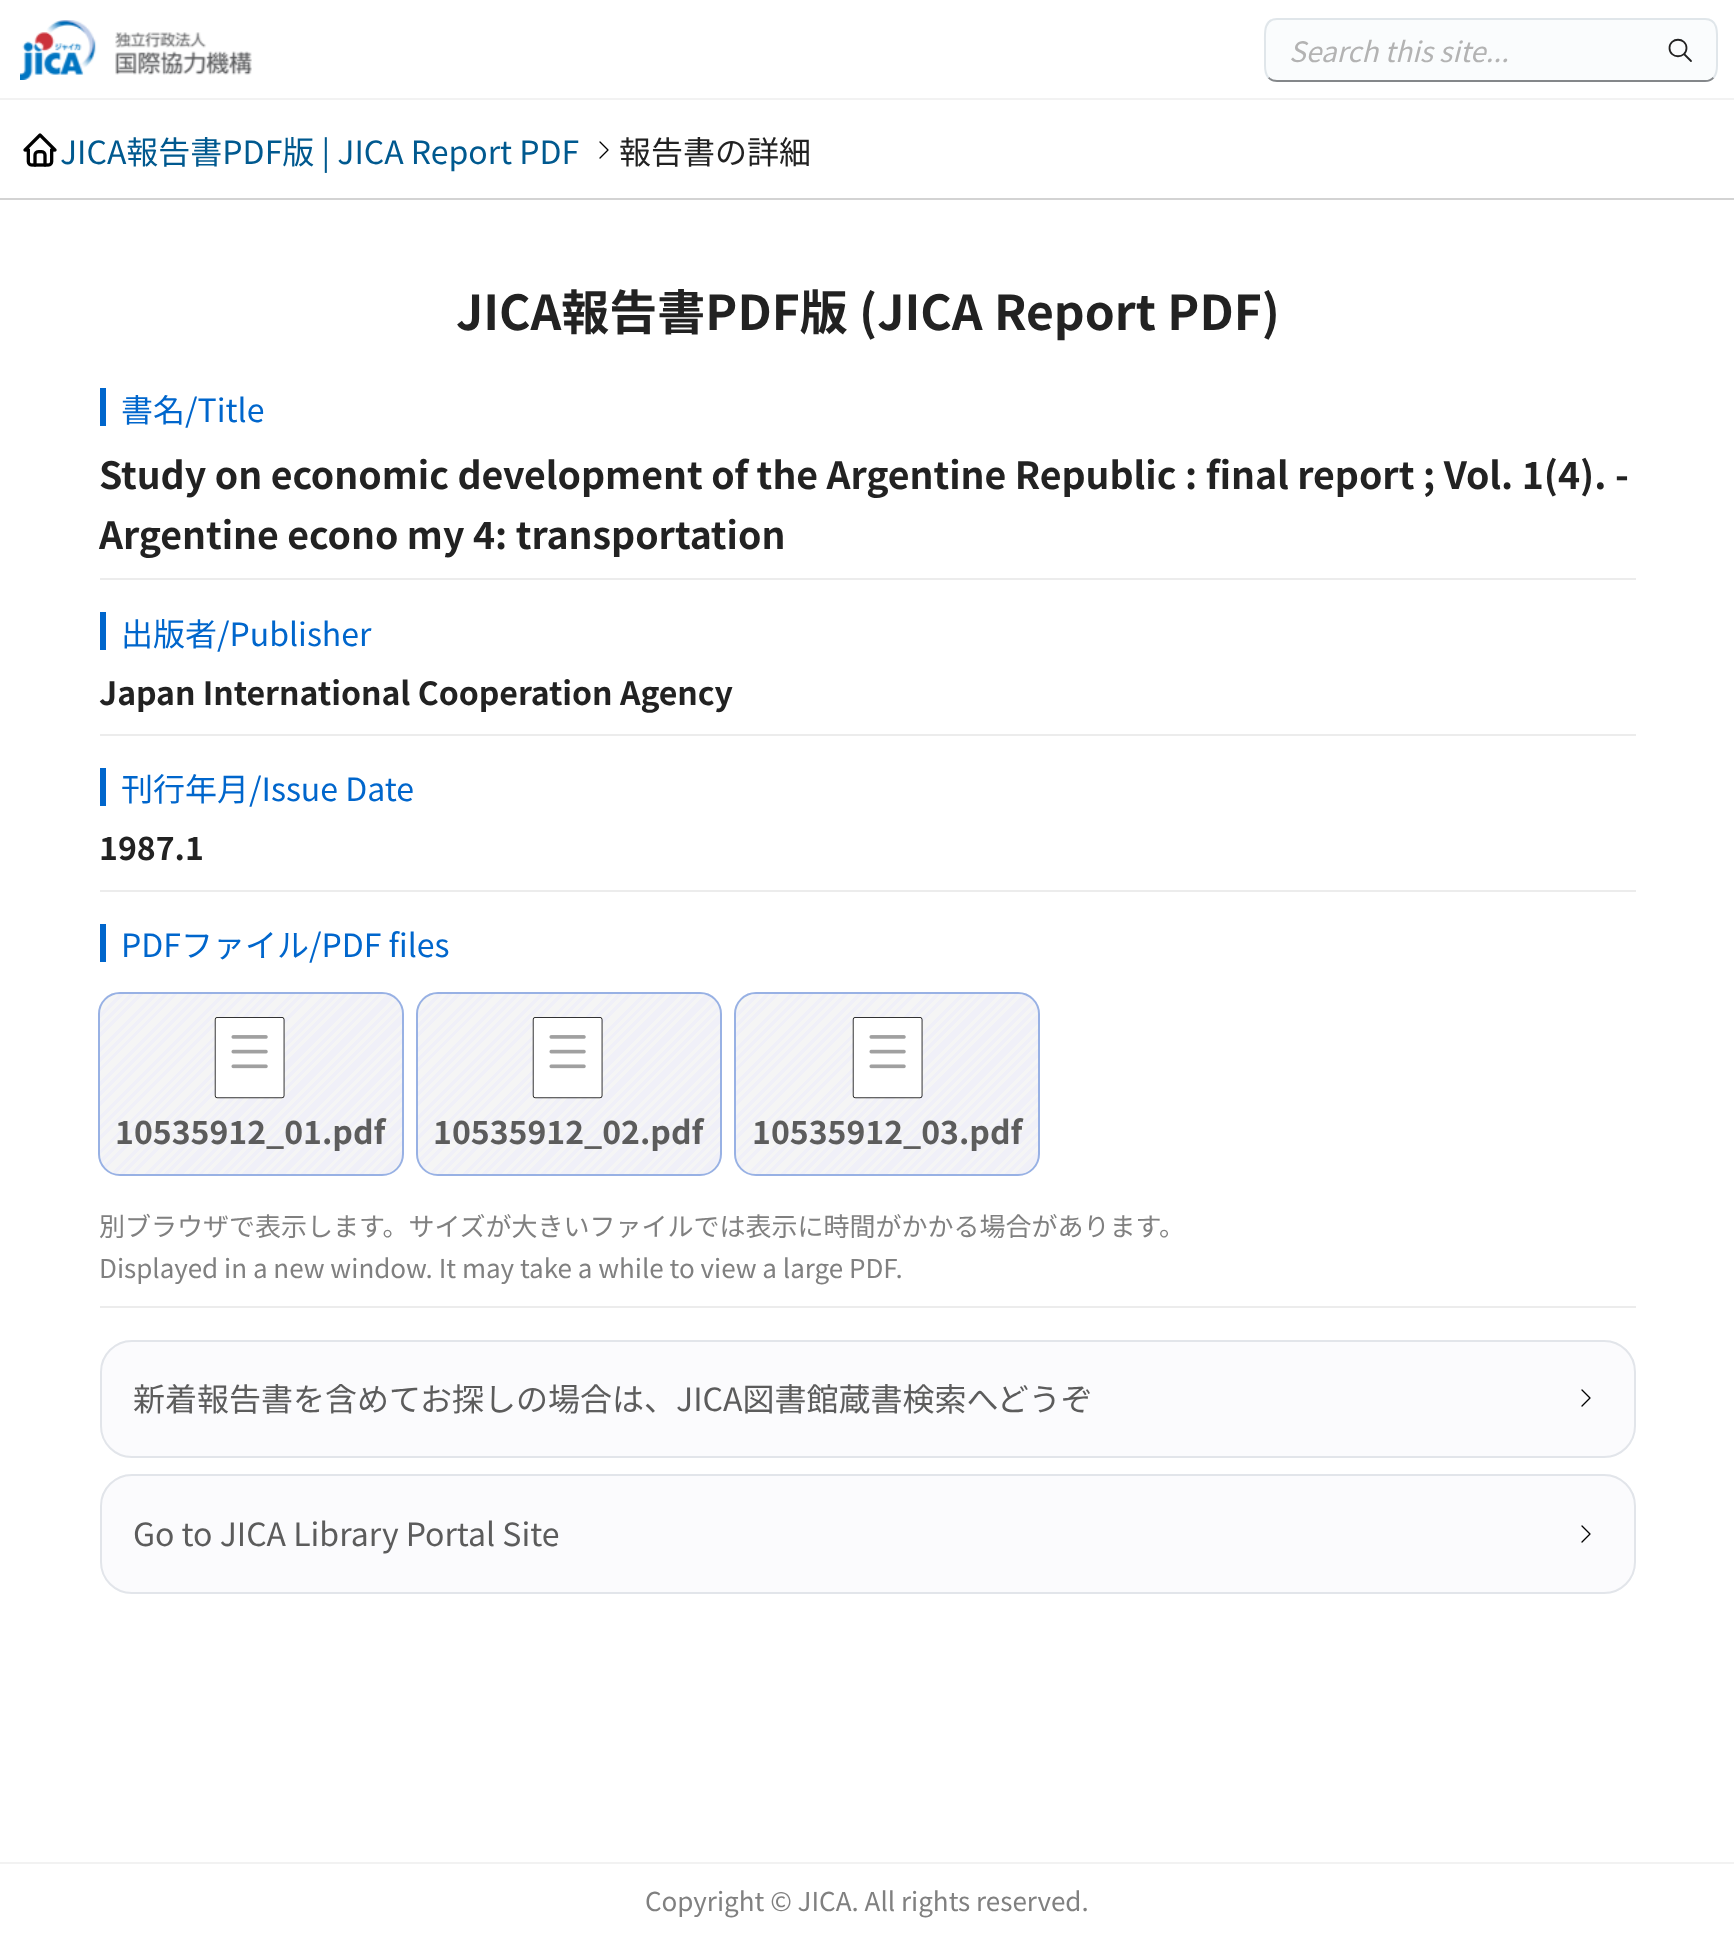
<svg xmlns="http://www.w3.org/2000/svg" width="1734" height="1942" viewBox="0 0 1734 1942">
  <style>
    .t1 { font: italic 28px Noto Sans JP; fill: #b3b3b3; }
    .t2 { font: 32px Noto Sans JP; fill: #00598f; }
    .t3 { font: 32px Noto Sans JP; fill: #222; }
    .t4 { font: bold 48px Noto Sans JP; fill: #222; }
    .t5 { font: 32px Noto Sans JP; fill: #06c; }
    .t6 { font: bold 37.45px Noto Sans JP; fill: #222; }
    .t7 { font: bold 32px Noto Sans JP; fill: #222; }
    .t8 { font: bold 32px Noto Sans JP; fill: #5c5c5c; }
    .t9 { font: 26px Noto Sans JP; fill: #808080; }
    .t10 { font: 32px Noto Sans JP; fill: #5c5c5c; }
  </style>
  <defs>
    <linearGradient id="g1" gradientUnits="userSpaceOnUse" x1="372" y1="1205" x2="128" y2="961"><stop offset="0" stop-color="#f5f5f5"/><stop offset="0.01" stop-color="#f5f5f5"/><stop offset="0.01" stop-color="#f0f0f8"/><stop offset="0.02" stop-color="#f0f0f8"/><stop offset="0.02" stop-color="#f5f5f5"/><stop offset="0.03" stop-color="#f5f5f5"/><stop offset="0.03" stop-color="#f0f0f8"/><stop offset="0.05" stop-color="#f0f0f8"/><stop offset="0.05" stop-color="#f5f5f5"/><stop offset="0.06" stop-color="#f5f5f5"/><stop offset="0.06" stop-color="#f0f0f8"/><stop offset="0.07" stop-color="#f0f0f8"/><stop offset="0.07" stop-color="#f5f5f5"/><stop offset="0.08" stop-color="#f5f5f5"/><stop offset="0.08" stop-color="#f0f0f8"/><stop offset="0.09" stop-color="#f0f0f8"/><stop offset="0.09" stop-color="#f5f5f5"/><stop offset="0.1" stop-color="#f5f5f5"/><stop offset="0.1" stop-color="#f0f0f8"/><stop offset="0.12" stop-color="#f0f0f8"/><stop offset="0.12" stop-color="#f5f5f5"/><stop offset="0.13" stop-color="#f5f5f5"/><stop offset="0.13" stop-color="#f0f0f8"/><stop offset="0.14" stop-color="#f0f0f8"/><stop offset="0.14" stop-color="#f5f5f5"/><stop offset="0.15" stop-color="#f5f5f5"/><stop offset="0.15" stop-color="#f0f0f8"/><stop offset="0.16" stop-color="#f0f0f8"/><stop offset="0.16" stop-color="#f5f5f5"/><stop offset="0.17" stop-color="#f5f5f5"/><stop offset="0.17" stop-color="#f0f0f8"/><stop offset="0.19" stop-color="#f0f0f8"/><stop offset="0.19" stop-color="#f5f5f5"/><stop offset="0.2" stop-color="#f5f5f5"/><stop offset="0.2" stop-color="#f0f0f8"/><stop offset="0.21" stop-color="#f0f0f8"/><stop offset="0.21" stop-color="#f5f5f5"/><stop offset="0.22" stop-color="#f5f5f5"/><stop offset="0.22" stop-color="#f0f0f8"/><stop offset="0.23" stop-color="#f0f0f8"/><stop offset="0.23" stop-color="#f5f5f5"/><stop offset="0.24" stop-color="#f5f5f5"/><stop offset="0.24" stop-color="#f0f0f8"/><stop offset="0.26" stop-color="#f0f0f8"/><stop offset="0.26" stop-color="#f5f5f5"/><stop offset="0.27" stop-color="#f5f5f5"/><stop offset="0.27" stop-color="#f0f0f8"/><stop offset="0.28" stop-color="#f0f0f8"/><stop offset="0.28" stop-color="#f5f5f5"/><stop offset="0.29" stop-color="#f5f5f5"/><stop offset="0.29" stop-color="#f0f0f8"/><stop offset="0.3" stop-color="#f0f0f8"/><stop offset="0.3" stop-color="#f5f5f5"/><stop offset="0.31" stop-color="#f5f5f5"/><stop offset="0.31" stop-color="#f0f0f8"/><stop offset="0.33" stop-color="#f0f0f8"/><stop offset="0.33" stop-color="#f5f5f5"/><stop offset="0.34" stop-color="#f5f5f5"/><stop offset="0.34" stop-color="#f0f0f8"/><stop offset="0.35" stop-color="#f0f0f8"/><stop offset="0.35" stop-color="#f5f5f5"/><stop offset="0.36" stop-color="#f5f5f5"/><stop offset="0.36" stop-color="#f0f0f8"/><stop offset="0.37" stop-color="#f0f0f8"/><stop offset="0.37" stop-color="#f5f5f5"/><stop offset="0.38" stop-color="#f5f5f5"/><stop offset="0.38" stop-color="#f0f0f8"/><stop offset="0.4" stop-color="#f0f0f8"/><stop offset="0.4" stop-color="#f5f5f5"/><stop offset="0.41" stop-color="#f5f5f5"/><stop offset="0.41" stop-color="#f0f0f8"/><stop offset="0.42" stop-color="#f0f0f8"/><stop offset="0.42" stop-color="#f5f5f5"/><stop offset="0.43" stop-color="#f5f5f5"/><stop offset="0.43" stop-color="#f0f0f8"/><stop offset="0.44" stop-color="#f0f0f8"/><stop offset="0.44" stop-color="#f5f5f5"/><stop offset="0.45" stop-color="#f5f5f5"/><stop offset="0.45" stop-color="#f0f0f8"/><stop offset="0.47" stop-color="#f0f0f8"/><stop offset="0.47" stop-color="#f5f5f5"/><stop offset="0.48" stop-color="#f5f5f5"/><stop offset="0.48" stop-color="#f0f0f8"/><stop offset="0.49" stop-color="#f0f0f8"/><stop offset="0.49" stop-color="#f5f5f5"/><stop offset="0.5" stop-color="#f5f5f5"/><stop offset="0.5" stop-color="#f0f0f8"/><stop offset="0.51" stop-color="#f0f0f8"/><stop offset="0.51" stop-color="#f5f5f5"/><stop offset="0.52" stop-color="#f5f5f5"/><stop offset="0.52" stop-color="#f0f0f8"/><stop offset="0.53" stop-color="#f0f0f8"/><stop offset="0.53" stop-color="#f5f5f5"/><stop offset="0.55" stop-color="#f5f5f5"/><stop offset="0.55" stop-color="#f0f0f8"/><stop offset="0.56" stop-color="#f0f0f8"/><stop offset="0.56" stop-color="#f5f5f5"/><stop offset="0.57" stop-color="#f5f5f5"/><stop offset="0.57" stop-color="#f0f0f8"/><stop offset="0.58" stop-color="#f0f0f8"/><stop offset="0.58" stop-color="#f5f5f5"/><stop offset="0.59" stop-color="#f5f5f5"/><stop offset="0.59" stop-color="#f0f0f8"/><stop offset="0.6" stop-color="#f0f0f8"/><stop offset="0.6" stop-color="#f5f5f5"/><stop offset="0.62" stop-color="#f5f5f5"/><stop offset="0.62" stop-color="#f0f0f8"/><stop offset="0.63" stop-color="#f0f0f8"/><stop offset="0.63" stop-color="#f5f5f5"/><stop offset="0.64" stop-color="#f5f5f5"/><stop offset="0.64" stop-color="#f0f0f8"/><stop offset="0.65" stop-color="#f0f0f8"/><stop offset="0.65" stop-color="#f5f5f5"/><stop offset="0.66" stop-color="#f5f5f5"/><stop offset="0.66" stop-color="#f0f0f8"/><stop offset="0.67" stop-color="#f0f0f8"/><stop offset="0.67" stop-color="#f5f5f5"/><stop offset="0.69" stop-color="#f5f5f5"/><stop offset="0.69" stop-color="#f0f0f8"/><stop offset="0.7" stop-color="#f0f0f8"/><stop offset="0.7" stop-color="#f5f5f5"/><stop offset="0.71" stop-color="#f5f5f5"/><stop offset="0.71" stop-color="#f0f0f8"/><stop offset="0.72" stop-color="#f0f0f8"/><stop offset="0.72" stop-color="#f5f5f5"/><stop offset="0.73" stop-color="#f5f5f5"/><stop offset="0.73" stop-color="#f0f0f8"/><stop offset="0.74" stop-color="#f0f0f8"/><stop offset="0.74" stop-color="#f5f5f5"/><stop offset="0.76" stop-color="#f5f5f5"/><stop offset="0.76" stop-color="#f0f0f8"/><stop offset="0.77" stop-color="#f0f0f8"/><stop offset="0.77" stop-color="#f5f5f5"/><stop offset="0.78" stop-color="#f5f5f5"/><stop offset="0.78" stop-color="#f0f0f8"/><stop offset="0.79" stop-color="#f0f0f8"/><stop offset="0.79" stop-color="#f5f5f5"/><stop offset="0.8" stop-color="#f5f5f5"/><stop offset="0.8" stop-color="#f0f0f8"/><stop offset="0.81" stop-color="#f0f0f8"/><stop offset="0.81" stop-color="#f5f5f5"/><stop offset="0.83" stop-color="#f5f5f5"/><stop offset="0.83" stop-color="#f0f0f8"/><stop offset="0.84" stop-color="#f0f0f8"/><stop offset="0.84" stop-color="#f5f5f5"/><stop offset="0.85" stop-color="#f5f5f5"/><stop offset="0.85" stop-color="#f0f0f8"/><stop offset="0.86" stop-color="#f0f0f8"/><stop offset="0.86" stop-color="#f5f5f5"/><stop offset="0.87" stop-color="#f5f5f5"/><stop offset="0.87" stop-color="#f0f0f8"/><stop offset="0.88" stop-color="#f0f0f8"/><stop offset="0.88" stop-color="#f5f5f5"/><stop offset="0.9" stop-color="#f5f5f5"/><stop offset="0.9" stop-color="#f0f0f8"/><stop offset="0.91" stop-color="#f0f0f8"/><stop offset="0.91" stop-color="#f5f5f5"/><stop offset="0.92" stop-color="#f5f5f5"/><stop offset="0.92" stop-color="#f0f0f8"/><stop offset="0.93" stop-color="#f0f0f8"/><stop offset="0.93" stop-color="#f5f5f5"/><stop offset="0.94" stop-color="#f5f5f5"/><stop offset="0.94" stop-color="#f0f0f8"/><stop offset="0.95" stop-color="#f0f0f8"/><stop offset="0.95" stop-color="#f5f5f5"/><stop offset="0.97" stop-color="#f5f5f5"/><stop offset="0.97" stop-color="#f0f0f8"/><stop offset="0.98" stop-color="#f0f0f8"/><stop offset="0.98" stop-color="#f5f5f5"/><stop offset="0.99" stop-color="#f5f5f5"/><stop offset="0.99" stop-color="#f0f0f8"/><stop offset="1" stop-color="#f0f0f8"/></linearGradient>
    <linearGradient id="g2" gradientUnits="userSpaceOnUse" x1="690" y1="1205" x2="446" y2="961"><stop offset="0" stop-color="#f5f5f5"/><stop offset="0.01" stop-color="#f5f5f5"/><stop offset="0.01" stop-color="#f0f0f8"/><stop offset="0.02" stop-color="#f0f0f8"/><stop offset="0.02" stop-color="#f5f5f5"/><stop offset="0.03" stop-color="#f5f5f5"/><stop offset="0.03" stop-color="#f0f0f8"/><stop offset="0.05" stop-color="#f0f0f8"/><stop offset="0.05" stop-color="#f5f5f5"/><stop offset="0.06" stop-color="#f5f5f5"/><stop offset="0.06" stop-color="#f0f0f8"/><stop offset="0.07" stop-color="#f0f0f8"/><stop offset="0.07" stop-color="#f5f5f5"/><stop offset="0.08" stop-color="#f5f5f5"/><stop offset="0.08" stop-color="#f0f0f8"/><stop offset="0.09" stop-color="#f0f0f8"/><stop offset="0.09" stop-color="#f5f5f5"/><stop offset="0.1" stop-color="#f5f5f5"/><stop offset="0.1" stop-color="#f0f0f8"/><stop offset="0.12" stop-color="#f0f0f8"/><stop offset="0.12" stop-color="#f5f5f5"/><stop offset="0.13" stop-color="#f5f5f5"/><stop offset="0.13" stop-color="#f0f0f8"/><stop offset="0.14" stop-color="#f0f0f8"/><stop offset="0.14" stop-color="#f5f5f5"/><stop offset="0.15" stop-color="#f5f5f5"/><stop offset="0.15" stop-color="#f0f0f8"/><stop offset="0.16" stop-color="#f0f0f8"/><stop offset="0.16" stop-color="#f5f5f5"/><stop offset="0.17" stop-color="#f5f5f5"/><stop offset="0.17" stop-color="#f0f0f8"/><stop offset="0.19" stop-color="#f0f0f8"/><stop offset="0.19" stop-color="#f5f5f5"/><stop offset="0.2" stop-color="#f5f5f5"/><stop offset="0.2" stop-color="#f0f0f8"/><stop offset="0.21" stop-color="#f0f0f8"/><stop offset="0.21" stop-color="#f5f5f5"/><stop offset="0.22" stop-color="#f5f5f5"/><stop offset="0.22" stop-color="#f0f0f8"/><stop offset="0.23" stop-color="#f0f0f8"/><stop offset="0.23" stop-color="#f5f5f5"/><stop offset="0.24" stop-color="#f5f5f5"/><stop offset="0.24" stop-color="#f0f0f8"/><stop offset="0.26" stop-color="#f0f0f8"/><stop offset="0.26" stop-color="#f5f5f5"/><stop offset="0.27" stop-color="#f5f5f5"/><stop offset="0.27" stop-color="#f0f0f8"/><stop offset="0.28" stop-color="#f0f0f8"/><stop offset="0.28" stop-color="#f5f5f5"/><stop offset="0.29" stop-color="#f5f5f5"/><stop offset="0.29" stop-color="#f0f0f8"/><stop offset="0.3" stop-color="#f0f0f8"/><stop offset="0.3" stop-color="#f5f5f5"/><stop offset="0.31" stop-color="#f5f5f5"/><stop offset="0.31" stop-color="#f0f0f8"/><stop offset="0.33" stop-color="#f0f0f8"/><stop offset="0.33" stop-color="#f5f5f5"/><stop offset="0.34" stop-color="#f5f5f5"/><stop offset="0.34" stop-color="#f0f0f8"/><stop offset="0.35" stop-color="#f0f0f8"/><stop offset="0.35" stop-color="#f5f5f5"/><stop offset="0.36" stop-color="#f5f5f5"/><stop offset="0.36" stop-color="#f0f0f8"/><stop offset="0.37" stop-color="#f0f0f8"/><stop offset="0.37" stop-color="#f5f5f5"/><stop offset="0.38" stop-color="#f5f5f5"/><stop offset="0.38" stop-color="#f0f0f8"/><stop offset="0.4" stop-color="#f0f0f8"/><stop offset="0.4" stop-color="#f5f5f5"/><stop offset="0.41" stop-color="#f5f5f5"/><stop offset="0.41" stop-color="#f0f0f8"/><stop offset="0.42" stop-color="#f0f0f8"/><stop offset="0.42" stop-color="#f5f5f5"/><stop offset="0.43" stop-color="#f5f5f5"/><stop offset="0.43" stop-color="#f0f0f8"/><stop offset="0.44" stop-color="#f0f0f8"/><stop offset="0.44" stop-color="#f5f5f5"/><stop offset="0.45" stop-color="#f5f5f5"/><stop offset="0.45" stop-color="#f0f0f8"/><stop offset="0.47" stop-color="#f0f0f8"/><stop offset="0.47" stop-color="#f5f5f5"/><stop offset="0.48" stop-color="#f5f5f5"/><stop offset="0.48" stop-color="#f0f0f8"/><stop offset="0.49" stop-color="#f0f0f8"/><stop offset="0.49" stop-color="#f5f5f5"/><stop offset="0.5" stop-color="#f5f5f5"/><stop offset="0.5" stop-color="#f0f0f8"/><stop offset="0.51" stop-color="#f0f0f8"/><stop offset="0.51" stop-color="#f5f5f5"/><stop offset="0.52" stop-color="#f5f5f5"/><stop offset="0.52" stop-color="#f0f0f8"/><stop offset="0.53" stop-color="#f0f0f8"/><stop offset="0.53" stop-color="#f5f5f5"/><stop offset="0.55" stop-color="#f5f5f5"/><stop offset="0.55" stop-color="#f0f0f8"/><stop offset="0.56" stop-color="#f0f0f8"/><stop offset="0.56" stop-color="#f5f5f5"/><stop offset="0.57" stop-color="#f5f5f5"/><stop offset="0.57" stop-color="#f0f0f8"/><stop offset="0.58" stop-color="#f0f0f8"/><stop offset="0.58" stop-color="#f5f5f5"/><stop offset="0.59" stop-color="#f5f5f5"/><stop offset="0.59" stop-color="#f0f0f8"/><stop offset="0.6" stop-color="#f0f0f8"/><stop offset="0.6" stop-color="#f5f5f5"/><stop offset="0.62" stop-color="#f5f5f5"/><stop offset="0.62" stop-color="#f0f0f8"/><stop offset="0.63" stop-color="#f0f0f8"/><stop offset="0.63" stop-color="#f5f5f5"/><stop offset="0.64" stop-color="#f5f5f5"/><stop offset="0.64" stop-color="#f0f0f8"/><stop offset="0.65" stop-color="#f0f0f8"/><stop offset="0.65" stop-color="#f5f5f5"/><stop offset="0.66" stop-color="#f5f5f5"/><stop offset="0.66" stop-color="#f0f0f8"/><stop offset="0.67" stop-color="#f0f0f8"/><stop offset="0.67" stop-color="#f5f5f5"/><stop offset="0.69" stop-color="#f5f5f5"/><stop offset="0.69" stop-color="#f0f0f8"/><stop offset="0.7" stop-color="#f0f0f8"/><stop offset="0.7" stop-color="#f5f5f5"/><stop offset="0.71" stop-color="#f5f5f5"/><stop offset="0.71" stop-color="#f0f0f8"/><stop offset="0.72" stop-color="#f0f0f8"/><stop offset="0.72" stop-color="#f5f5f5"/><stop offset="0.73" stop-color="#f5f5f5"/><stop offset="0.73" stop-color="#f0f0f8"/><stop offset="0.74" stop-color="#f0f0f8"/><stop offset="0.74" stop-color="#f5f5f5"/><stop offset="0.76" stop-color="#f5f5f5"/><stop offset="0.76" stop-color="#f0f0f8"/><stop offset="0.77" stop-color="#f0f0f8"/><stop offset="0.77" stop-color="#f5f5f5"/><stop offset="0.78" stop-color="#f5f5f5"/><stop offset="0.78" stop-color="#f0f0f8"/><stop offset="0.79" stop-color="#f0f0f8"/><stop offset="0.79" stop-color="#f5f5f5"/><stop offset="0.8" stop-color="#f5f5f5"/><stop offset="0.8" stop-color="#f0f0f8"/><stop offset="0.81" stop-color="#f0f0f8"/><stop offset="0.81" stop-color="#f5f5f5"/><stop offset="0.83" stop-color="#f5f5f5"/><stop offset="0.83" stop-color="#f0f0f8"/><stop offset="0.84" stop-color="#f0f0f8"/><stop offset="0.84" stop-color="#f5f5f5"/><stop offset="0.85" stop-color="#f5f5f5"/><stop offset="0.85" stop-color="#f0f0f8"/><stop offset="0.86" stop-color="#f0f0f8"/><stop offset="0.86" stop-color="#f5f5f5"/><stop offset="0.87" stop-color="#f5f5f5"/><stop offset="0.87" stop-color="#f0f0f8"/><stop offset="0.88" stop-color="#f0f0f8"/><stop offset="0.88" stop-color="#f5f5f5"/><stop offset="0.9" stop-color="#f5f5f5"/><stop offset="0.9" stop-color="#f0f0f8"/><stop offset="0.91" stop-color="#f0f0f8"/><stop offset="0.91" stop-color="#f5f5f5"/><stop offset="0.92" stop-color="#f5f5f5"/><stop offset="0.92" stop-color="#f0f0f8"/><stop offset="0.93" stop-color="#f0f0f8"/><stop offset="0.93" stop-color="#f5f5f5"/><stop offset="0.94" stop-color="#f5f5f5"/><stop offset="0.94" stop-color="#f0f0f8"/><stop offset="0.95" stop-color="#f0f0f8"/><stop offset="0.95" stop-color="#f5f5f5"/><stop offset="0.97" stop-color="#f5f5f5"/><stop offset="0.97" stop-color="#f0f0f8"/><stop offset="0.98" stop-color="#f0f0f8"/><stop offset="0.98" stop-color="#f5f5f5"/><stop offset="0.99" stop-color="#f5f5f5"/><stop offset="0.99" stop-color="#f0f0f8"/><stop offset="1" stop-color="#f0f0f8"/></linearGradient>
    <linearGradient id="g3" gradientUnits="userSpaceOnUse" x1="1008" y1="1205" x2="764" y2="961"><stop offset="0" stop-color="#f5f5f5"/><stop offset="0.01" stop-color="#f5f5f5"/><stop offset="0.01" stop-color="#f0f0f8"/><stop offset="0.02" stop-color="#f0f0f8"/><stop offset="0.02" stop-color="#f5f5f5"/><stop offset="0.03" stop-color="#f5f5f5"/><stop offset="0.03" stop-color="#f0f0f8"/><stop offset="0.05" stop-color="#f0f0f8"/><stop offset="0.05" stop-color="#f5f5f5"/><stop offset="0.06" stop-color="#f5f5f5"/><stop offset="0.06" stop-color="#f0f0f8"/><stop offset="0.07" stop-color="#f0f0f8"/><stop offset="0.07" stop-color="#f5f5f5"/><stop offset="0.08" stop-color="#f5f5f5"/><stop offset="0.08" stop-color="#f0f0f8"/><stop offset="0.09" stop-color="#f0f0f8"/><stop offset="0.09" stop-color="#f5f5f5"/><stop offset="0.1" stop-color="#f5f5f5"/><stop offset="0.1" stop-color="#f0f0f8"/><stop offset="0.12" stop-color="#f0f0f8"/><stop offset="0.12" stop-color="#f5f5f5"/><stop offset="0.13" stop-color="#f5f5f5"/><stop offset="0.13" stop-color="#f0f0f8"/><stop offset="0.14" stop-color="#f0f0f8"/><stop offset="0.14" stop-color="#f5f5f5"/><stop offset="0.15" stop-color="#f5f5f5"/><stop offset="0.15" stop-color="#f0f0f8"/><stop offset="0.16" stop-color="#f0f0f8"/><stop offset="0.16" stop-color="#f5f5f5"/><stop offset="0.17" stop-color="#f5f5f5"/><stop offset="0.17" stop-color="#f0f0f8"/><stop offset="0.19" stop-color="#f0f0f8"/><stop offset="0.19" stop-color="#f5f5f5"/><stop offset="0.2" stop-color="#f5f5f5"/><stop offset="0.2" stop-color="#f0f0f8"/><stop offset="0.21" stop-color="#f0f0f8"/><stop offset="0.21" stop-color="#f5f5f5"/><stop offset="0.22" stop-color="#f5f5f5"/><stop offset="0.22" stop-color="#f0f0f8"/><stop offset="0.23" stop-color="#f0f0f8"/><stop offset="0.23" stop-color="#f5f5f5"/><stop offset="0.24" stop-color="#f5f5f5"/><stop offset="0.24" stop-color="#f0f0f8"/><stop offset="0.26" stop-color="#f0f0f8"/><stop offset="0.26" stop-color="#f5f5f5"/><stop offset="0.27" stop-color="#f5f5f5"/><stop offset="0.27" stop-color="#f0f0f8"/><stop offset="0.28" stop-color="#f0f0f8"/><stop offset="0.28" stop-color="#f5f5f5"/><stop offset="0.29" stop-color="#f5f5f5"/><stop offset="0.29" stop-color="#f0f0f8"/><stop offset="0.3" stop-color="#f0f0f8"/><stop offset="0.3" stop-color="#f5f5f5"/><stop offset="0.31" stop-color="#f5f5f5"/><stop offset="0.31" stop-color="#f0f0f8"/><stop offset="0.33" stop-color="#f0f0f8"/><stop offset="0.33" stop-color="#f5f5f5"/><stop offset="0.34" stop-color="#f5f5f5"/><stop offset="0.34" stop-color="#f0f0f8"/><stop offset="0.35" stop-color="#f0f0f8"/><stop offset="0.35" stop-color="#f5f5f5"/><stop offset="0.36" stop-color="#f5f5f5"/><stop offset="0.36" stop-color="#f0f0f8"/><stop offset="0.37" stop-color="#f0f0f8"/><stop offset="0.37" stop-color="#f5f5f5"/><stop offset="0.38" stop-color="#f5f5f5"/><stop offset="0.38" stop-color="#f0f0f8"/><stop offset="0.4" stop-color="#f0f0f8"/><stop offset="0.4" stop-color="#f5f5f5"/><stop offset="0.41" stop-color="#f5f5f5"/><stop offset="0.41" stop-color="#f0f0f8"/><stop offset="0.42" stop-color="#f0f0f8"/><stop offset="0.42" stop-color="#f5f5f5"/><stop offset="0.43" stop-color="#f5f5f5"/><stop offset="0.43" stop-color="#f0f0f8"/><stop offset="0.44" stop-color="#f0f0f8"/><stop offset="0.44" stop-color="#f5f5f5"/><stop offset="0.45" stop-color="#f5f5f5"/><stop offset="0.45" stop-color="#f0f0f8"/><stop offset="0.47" stop-color="#f0f0f8"/><stop offset="0.47" stop-color="#f5f5f5"/><stop offset="0.48" stop-color="#f5f5f5"/><stop offset="0.48" stop-color="#f0f0f8"/><stop offset="0.49" stop-color="#f0f0f8"/><stop offset="0.49" stop-color="#f5f5f5"/><stop offset="0.5" stop-color="#f5f5f5"/><stop offset="0.5" stop-color="#f0f0f8"/><stop offset="0.51" stop-color="#f0f0f8"/><stop offset="0.51" stop-color="#f5f5f5"/><stop offset="0.52" stop-color="#f5f5f5"/><stop offset="0.52" stop-color="#f0f0f8"/><stop offset="0.53" stop-color="#f0f0f8"/><stop offset="0.53" stop-color="#f5f5f5"/><stop offset="0.55" stop-color="#f5f5f5"/><stop offset="0.55" stop-color="#f0f0f8"/><stop offset="0.56" stop-color="#f0f0f8"/><stop offset="0.56" stop-color="#f5f5f5"/><stop offset="0.57" stop-color="#f5f5f5"/><stop offset="0.57" stop-color="#f0f0f8"/><stop offset="0.58" stop-color="#f0f0f8"/><stop offset="0.58" stop-color="#f5f5f5"/><stop offset="0.59" stop-color="#f5f5f5"/><stop offset="0.59" stop-color="#f0f0f8"/><stop offset="0.6" stop-color="#f0f0f8"/><stop offset="0.6" stop-color="#f5f5f5"/><stop offset="0.62" stop-color="#f5f5f5"/><stop offset="0.62" stop-color="#f0f0f8"/><stop offset="0.63" stop-color="#f0f0f8"/><stop offset="0.63" stop-color="#f5f5f5"/><stop offset="0.64" stop-color="#f5f5f5"/><stop offset="0.64" stop-color="#f0f0f8"/><stop offset="0.65" stop-color="#f0f0f8"/><stop offset="0.65" stop-color="#f5f5f5"/><stop offset="0.66" stop-color="#f5f5f5"/><stop offset="0.66" stop-color="#f0f0f8"/><stop offset="0.67" stop-color="#f0f0f8"/><stop offset="0.67" stop-color="#f5f5f5"/><stop offset="0.69" stop-color="#f5f5f5"/><stop offset="0.69" stop-color="#f0f0f8"/><stop offset="0.7" stop-color="#f0f0f8"/><stop offset="0.7" stop-color="#f5f5f5"/><stop offset="0.71" stop-color="#f5f5f5"/><stop offset="0.71" stop-color="#f0f0f8"/><stop offset="0.72" stop-color="#f0f0f8"/><stop offset="0.72" stop-color="#f5f5f5"/><stop offset="0.73" stop-color="#f5f5f5"/><stop offset="0.73" stop-color="#f0f0f8"/><stop offset="0.74" stop-color="#f0f0f8"/><stop offset="0.74" stop-color="#f5f5f5"/><stop offset="0.76" stop-color="#f5f5f5"/><stop offset="0.76" stop-color="#f0f0f8"/><stop offset="0.77" stop-color="#f0f0f8"/><stop offset="0.77" stop-color="#f5f5f5"/><stop offset="0.78" stop-color="#f5f5f5"/><stop offset="0.78" stop-color="#f0f0f8"/><stop offset="0.79" stop-color="#f0f0f8"/><stop offset="0.79" stop-color="#f5f5f5"/><stop offset="0.8" stop-color="#f5f5f5"/><stop offset="0.8" stop-color="#f0f0f8"/><stop offset="0.81" stop-color="#f0f0f8"/><stop offset="0.81" stop-color="#f5f5f5"/><stop offset="0.83" stop-color="#f5f5f5"/><stop offset="0.83" stop-color="#f0f0f8"/><stop offset="0.84" stop-color="#f0f0f8"/><stop offset="0.84" stop-color="#f5f5f5"/><stop offset="0.85" stop-color="#f5f5f5"/><stop offset="0.85" stop-color="#f0f0f8"/><stop offset="0.86" stop-color="#f0f0f8"/><stop offset="0.86" stop-color="#f5f5f5"/><stop offset="0.87" stop-color="#f5f5f5"/><stop offset="0.87" stop-color="#f0f0f8"/><stop offset="0.88" stop-color="#f0f0f8"/><stop offset="0.88" stop-color="#f5f5f5"/><stop offset="0.9" stop-color="#f5f5f5"/><stop offset="0.9" stop-color="#f0f0f8"/><stop offset="0.91" stop-color="#f0f0f8"/><stop offset="0.91" stop-color="#f5f5f5"/><stop offset="0.92" stop-color="#f5f5f5"/><stop offset="0.92" stop-color="#f0f0f8"/><stop offset="0.93" stop-color="#f0f0f8"/><stop offset="0.93" stop-color="#f5f5f5"/><stop offset="0.94" stop-color="#f5f5f5"/><stop offset="0.94" stop-color="#f0f0f8"/><stop offset="0.95" stop-color="#f0f0f8"/><stop offset="0.95" stop-color="#f5f5f5"/><stop offset="0.97" stop-color="#f5f5f5"/><stop offset="0.97" stop-color="#f0f0f8"/><stop offset="0.98" stop-color="#f0f0f8"/><stop offset="0.98" stop-color="#f5f5f5"/><stop offset="0.99" stop-color="#f5f5f5"/><stop offset="0.99" stop-color="#f0f0f8"/><stop offset="1" stop-color="#f0f0f8"/></linearGradient>
  </defs>
  <rect width="100%" height="100%" fill="#fff"/>
  <rect x="0" y="98" width="1734" height="2" fill="#f2f2f2"/>
  <image x="20" y="20" width="232" height="60" href="images/1.png"/>
  <rect x="1264" y="18" width="454" height="64" rx="12" fill="#fafcfd"/>
  <path d="M1713.5 77.5C1711.5 80 1708.5 81 1705 81H1277C1273.5 81 1270.5 80 1268.5 77.5" fill="none" stroke="#84878a" stroke-width="2"/>
  <path d="M1268.5 77.5C1264.5 73.5 1265 68 1265 63V43.5C1265 34.5 1263 19 1277 19H1705C1719 19 1717 34.5 1717 43.5V63C1717 68 1717.5 73.5 1713.5 77.5" fill="none" stroke="#e0e6ea" stroke-width="2"/>
  <text x="1289" y="62" class="t1">Search this site...</text>
  <path d="M1669.5 48C1669.5 59 1686.5 59 1686.5 48C1686.5 37 1669.5 37 1669.5 48M1691 61L1684 54" fill="none" stroke="#222" stroke-width="1.8" stroke-linecap="round" stroke-linejoin="round"/>
  <rect x="0" y="198" width="1734" height="2" fill="#d3d3d3"/>
  <image x="23" y="133" width="34" height="34" href="images/2.png"/>
  <text x="60" y="164" class="t2">JICA報告書PDF版 | JICA Report PDF</text>
  <path d="M600 142L608 150L600 158" fill="none" stroke="#000" stroke-width="1.3" stroke-linecap="round" stroke-linejoin="round"/>
  <text x="619" y="164" class="t3">報告書の詳細</text>
  <text x="456" y="330" word-spacing="0.5" class="t4">JICA報告書PDF版 (JICA Report PDF)</text>
  <rect x="100" y="578" width="1536" height="2" fill="#ececec"/>
  <rect x="100" y="388" width="6" height="38" fill="#06c"/>
  <text x="121" y="422" class="t5">書名/Title</text>
  <text x="99" y="489" class="t6">Study on economic development of the Argentine Republic : final report ; Vol. 1(4). -</text>
  <text x="99" y="549" class="t6">Argentine econo my 4: transportation</text>
  <rect x="100" y="734" width="1536" height="2" fill="#ececec"/>
  <rect x="100" y="612" width="6" height="38" fill="#06c"/>
  <text x="121" y="646" class="t5">出版者/Publisher</text>
  <text x="99" y="705" class="t7">Japan International Cooperation Agency</text>
  <rect x="100" y="890" width="1536" height="2" fill="#ececec"/>
  <rect x="100" y="768" width="6" height="38" fill="#06c"/>
  <text x="121" y="801" class="t5">刊行年月/Issue Date</text>
  <text x="99" y="860" class="t7">1987.1</text>
  <rect x="100" y="924" width="6" height="38" fill="#06c"/>
  <text x="121" y="957" class="t5">PDFファイル/PDF files</text>
  <rect x="100" y="994" width="302" height="180" rx="20" fill="url(#g1)"/>
  <rect x="99" y="993" width="304" height="182" rx="21" fill="none" stroke="#3264c980" stroke-width="2"/>
  <image x="214" y="1017" width="71" height="82" href="images/3.png"/>
  <text x="115" y="1144" class="t8">10535912_01.pdf</text>
  <rect x="418" y="994" width="302" height="180" rx="20" fill="url(#g2)"/>
  <rect x="417" y="993" width="304" height="182" rx="21" fill="none" stroke="#3264c980" stroke-width="2"/>
  <image x="532" y="1017" width="71" height="82" href="images/3.png"/>
  <text x="433" y="1144" class="t8">10535912_02.pdf</text>
  <rect x="736" y="994" width="302" height="180" rx="20" fill="url(#g3)"/>
  <rect x="735" y="993" width="304" height="182" rx="21" fill="none" stroke="#3264c980" stroke-width="2"/>
  <image x="852" y="1017" width="71" height="82" href="images/4.png"/>
  <text x="752" y="1144" class="t8">10535912_03.pdf</text>
  <rect x="100" y="1306" width="1536" height="2" fill="#ececec"/>
  <text x="99" y="1236" class="t9">別ブラウザで表示します。サイズが大きいファイルでは表示に時間がかかる場合があります。</text>
  <text x="99" y="1278" class="t9">Displayed in a new window. It may take a while to view a large PDF.</text>
  <rect x="100" y="1340" width="1536" height="118" rx="32" fill="#fbfbfd"/>
  <path d="M1582 1390L1590 1398L1582 1406" fill="none" stroke="#000" stroke-width="1.3" stroke-linecap="round" stroke-linejoin="round"/>
  <rect x="101" y="1341" width="1534" height="116" rx="31" fill="none" stroke="#e2e5ea" stroke-width="2"/>
  <text x="133" y="1411" class="t10">新着報告書を含めてお探しの場合は、JICA図書館蔵書検索へどうぞ</text>
  <rect x="100" y="1474" width="1536" height="120" rx="32" fill="#fbfbfd"/>
  <path d="M1582 1526L1590 1534L1582 1542" fill="none" stroke="#000" stroke-width="1.3" stroke-linecap="round" stroke-linejoin="round"/>
  <rect x="101" y="1475" width="1534" height="118" rx="31" fill="none" stroke="#e2e5ea" stroke-width="2"/>
  <text x="133" y="1546" class="t10">Go to JICA Library Portal Site</text>
  <rect x="0" y="1862" width="1734" height="2" fill="#f2f2f2"/>
  <text x="645" y="1911" class="t9">Copyright © JICA. All rights reserved.</text>
</svg>
